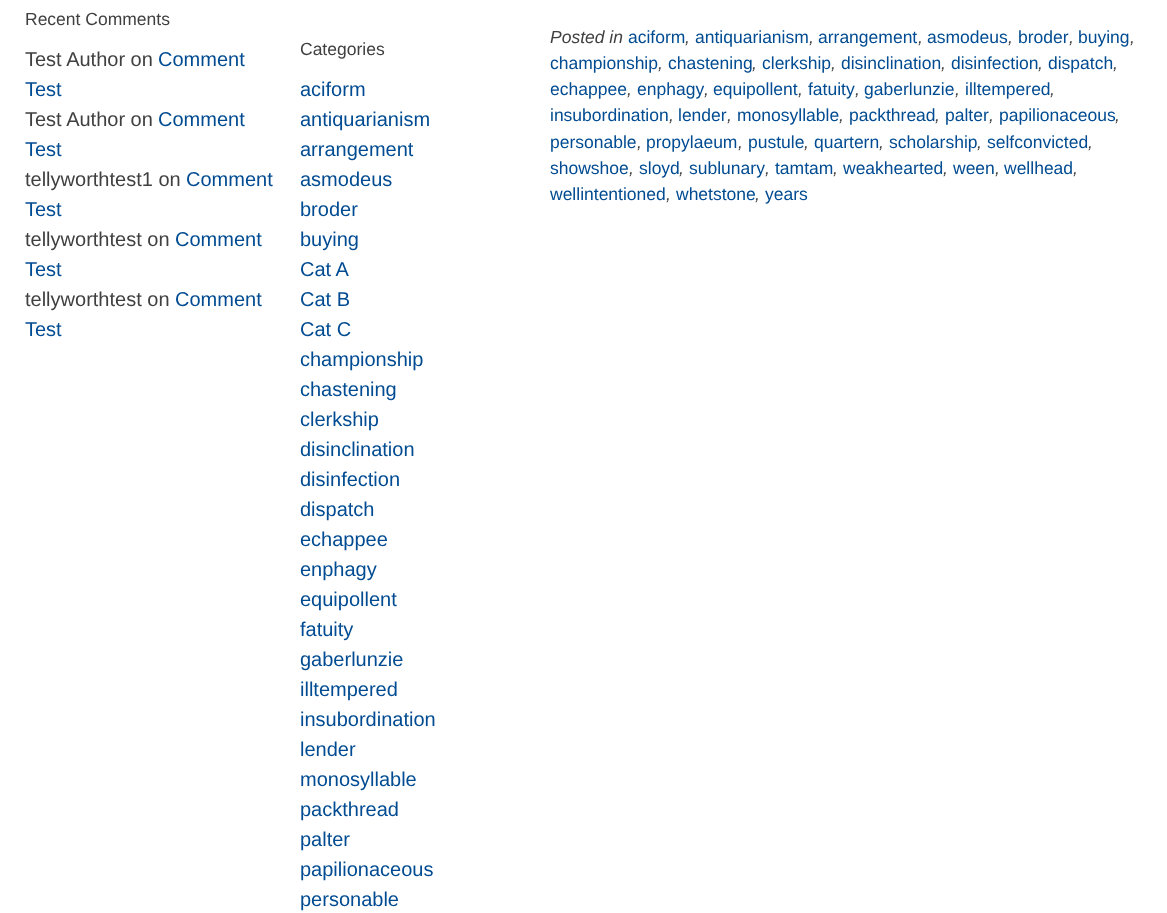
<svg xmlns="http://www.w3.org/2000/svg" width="1167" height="913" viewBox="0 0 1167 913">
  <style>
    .t1 { font: 17.5px Liberation Sans; fill: #404040; }
    .t2 { font: 20px Liberation Sans; fill: #404040; }
    .t3 { font: 20px Liberation Sans; fill: #004b91; }
    .t4 { font: italic 17.5px Liberation Sans; fill: #404040; }
    .t5 { font: 17.5px Liberation Sans; fill: #004b91; }
  </style>
  <rect width="100%" height="100%" fill="#fff"/>
  <text x="25" y="25" class="t1">Recent Comments</text>
  <text x="25" y="66" class="t2">Test Author on</text>
  <text x="158" y="66" class="t3">Comment</text>
  <text x="25" y="96" class="t3">Test</text>
  <text x="25" y="126" class="t2">Test Author on</text>
  <text x="158" y="126" class="t3">Comment</text>
  <text x="25" y="156" class="t3">Test</text>
  <text x="25" y="186" class="t2">tellyworthtest1 on</text>
  <text x="186" y="186" class="t3">Comment</text>
  <text x="25" y="216" class="t3">Test</text>
  <text x="25" y="246" class="t2">tellyworthtest on</text>
  <text x="175" y="246" class="t3">Comment</text>
  <text x="25" y="276" class="t3">Test</text>
  <text x="25" y="306" class="t2">tellyworthtest on</text>
  <text x="175" y="306" class="t3">Comment</text>
  <text x="25" y="336" class="t3">Test</text>
  <text x="300" y="55" class="t1">Categories</text>
  <text x="300" y="96" class="t3">aciform</text>
  <text x="300" y="126" class="t3">antiquarianism</text>
  <text x="300" y="156" class="t3">arrangement</text>
  <text x="300" y="186" class="t3">asmodeus</text>
  <text x="300" y="216" class="t3">broder</text>
  <text x="300" y="246" class="t3">buying</text>
  <text x="300" y="276" class="t3">Cat A</text>
  <text x="300" y="306" class="t3">Cat B</text>
  <text x="300" y="336" class="t3">Cat C</text>
  <text x="300" y="366" class="t3">championship</text>
  <text x="300" y="396" class="t3">chastening</text>
  <text x="300" y="426" class="t3">clerkship</text>
  <text x="300" y="456" class="t3">disinclination</text>
  <text x="300" y="486" class="t3">disinfection</text>
  <text x="300" y="516" class="t3">dispatch</text>
  <text x="300" y="546" class="t3">echappee</text>
  <text x="300" y="576" class="t3">enphagy</text>
  <text x="300" y="606" class="t3">equipollent</text>
  <text x="300" y="636" class="t3">fatuity</text>
  <text x="300" y="666" class="t3">gaberlunzie</text>
  <text x="300" y="696" class="t3">illtempered</text>
  <text x="300" y="726" class="t3">insubordination</text>
  <text x="300" y="756" class="t3">lender</text>
  <text x="300" y="786" class="t3">monosyllable</text>
  <text x="300" y="816" class="t3">packthread</text>
  <text x="300" y="846" class="t3">palter</text>
  <text x="300" y="876" class="t3">papilionaceous</text>
  <text x="300" y="906" class="t3">personable</text>
  <text x="550" y="43" class="t4">Posted in</text>
  <text x="628" y="43" class="t5">aciform</text>
  <text x="685" y="43" class="t4">,</text>
  <text x="695" y="43" class="t5">antiquarianism</text>
  <text x="809" y="43" class="t4">,</text>
  <text x="818" y="43" class="t5">arrangement</text>
  <text x="918" y="43" class="t4">,</text>
  <text x="927" y="43" class="t5">asmodeus</text>
  <text x="1008" y="43" class="t4">,</text>
  <text x="1018" y="43" class="t5">broder</text>
  <text x="1069" y="43" class="t4">,</text>
  <text x="1078" y="43" class="t5">buying</text>
  <text x="1130" y="43" class="t4">,</text>
  <text x="550" y="69" class="t5">championship</text>
  <text x="658" y="69" class="t4">,</text>
  <text x="668" y="69" class="t5">chastening</text>
  <text x="752" y="69" class="t4">,</text>
  <text x="762" y="69" class="t5">clerkship</text>
  <text x="831" y="69" class="t4">,</text>
  <text x="841" y="69" class="t5">disinclination</text>
  <text x="941" y="69" class="t4">,</text>
  <text x="951" y="69" class="t5">disinfection</text>
  <text x="1038" y="69" class="t4">,</text>
  <text x="1048" y="69" class="t5">dispatch</text>
  <text x="1113" y="69" class="t4">,</text>
  <text x="550" y="95" class="t5">echappee</text>
  <text x="627" y="95" class="t4">,</text>
  <text x="637" y="95" class="t5">enphagy</text>
  <text x="704" y="95" class="t4">,</text>
  <text x="713" y="95" class="t5">equipollent</text>
  <text x="798" y="95" class="t4">,</text>
  <text x="808" y="95" class="t5">fatuity</text>
  <text x="855" y="95" class="t4">,</text>
  <text x="864" y="95" class="t5">gaberlunzie</text>
  <text x="955" y="95" class="t4">,</text>
  <text x="965" y="95" class="t5">illtempered</text>
  <text x="1050" y="95" class="t4">,</text>
  <text x="550" y="121" class="t5">insubordination</text>
  <text x="669" y="121" class="t4">,</text>
  <text x="678" y="121" class="t5">lender</text>
  <text x="727" y="121" class="t4">,</text>
  <text x="737" y="121" class="t5">monosyllable</text>
  <text x="839" y="121" class="t4">,</text>
  <text x="849" y="121" class="t5">packthread</text>
  <text x="935" y="121" class="t4">,</text>
  <text x="945" y="121" class="t5">palter</text>
  <text x="989" y="121" class="t4">,</text>
  <text x="999" y="121" class="t5">papilionaceous</text>
  <text x="1115" y="121" class="t4">,</text>
  <text x="550" y="148" class="t5">personable</text>
  <text x="637" y="148" class="t4">,</text>
  <text x="646" y="148" class="t5">propylaeum</text>
  <text x="738" y="148" class="t4">,</text>
  <text x="748" y="148" class="t5">pustule</text>
  <text x="804" y="148" class="t4">,</text>
  <text x="814" y="148" class="t5">quartern</text>
  <text x="879" y="148" class="t4">,</text>
  <text x="889" y="148" class="t5">scholarship</text>
  <text x="977" y="148" class="t4">,</text>
  <text x="987" y="148" class="t5">selfconvicted</text>
  <text x="1088" y="148" class="t4">,</text>
  <text x="550" y="174" class="t5">showshoe</text>
  <text x="629" y="174" class="t4">,</text>
  <text x="639" y="174" class="t5">sloyd</text>
  <text x="679" y="174" class="t4">,</text>
  <text x="689" y="174" class="t5">sublunary</text>
  <text x="765" y="174" class="t4">,</text>
  <text x="775" y="174" class="t5">tamtam</text>
  <text x="833" y="174" class="t4">,</text>
  <text x="843" y="174" class="t5">weakhearted</text>
  <text x="943" y="174" class="t4">,</text>
  <text x="953" y="174" class="t5">ween</text>
  <text x="995" y="174" class="t4">,</text>
  <text x="1004" y="174" class="t5">wellhead</text>
  <text x="1073" y="174" class="t4">,</text>
  <text x="550" y="200" class="t5">wellintentioned</text>
  <text x="666" y="200" class="t4">,</text>
  <text x="676" y="200" class="t5">whetstone</text>
  <text x="755" y="200" class="t4">,</text>
  <text x="765" y="200" class="t5">years</text>
</svg>
